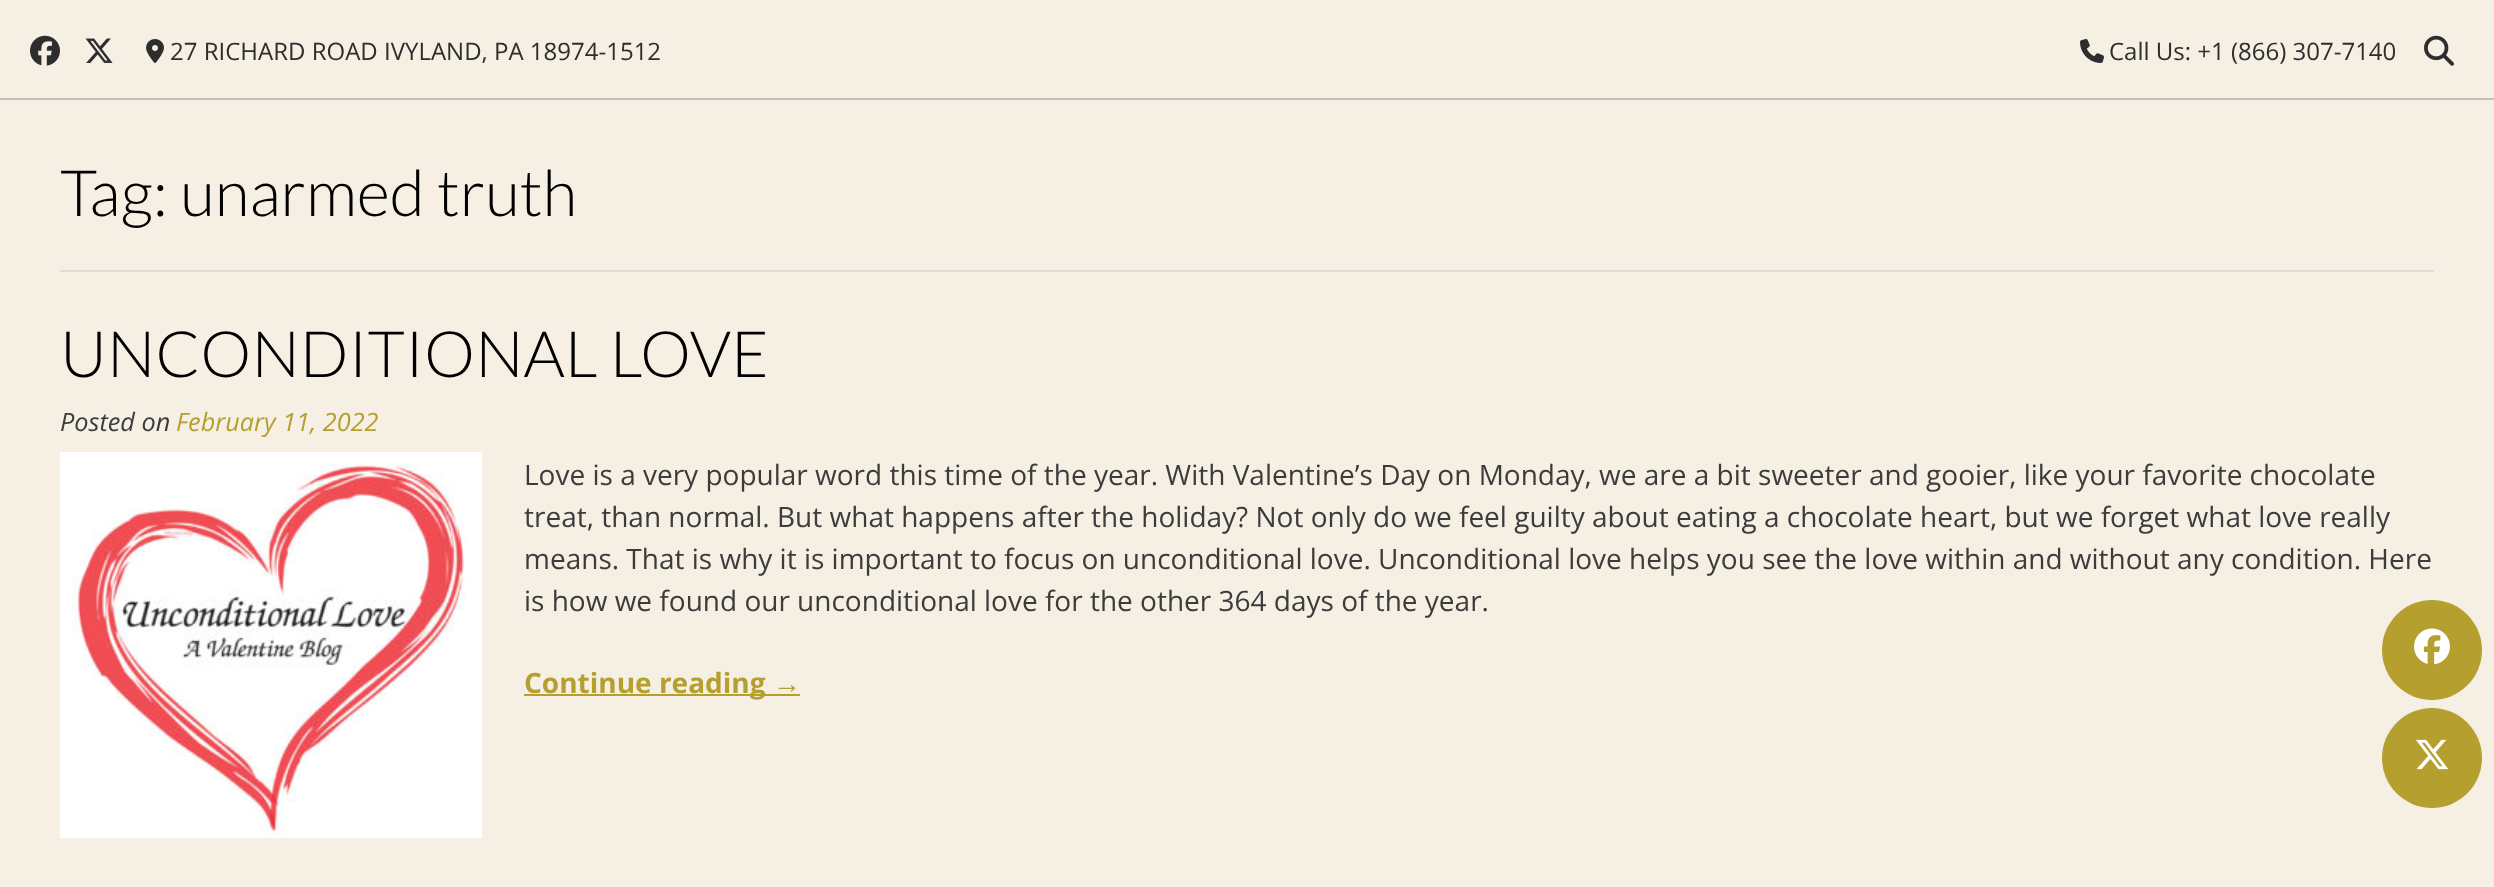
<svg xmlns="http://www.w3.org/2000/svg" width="2494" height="887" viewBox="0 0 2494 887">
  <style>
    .t1 { font: 24px Open Sans; fill: #2d2d2d; }
    .t2 { font: 300 64px Lato; fill: #000; }
    .t3 { font: italic 25.25px Open Sans; fill: #3c3c3c; }
    .t4 { font: italic 25.25px Open Sans; fill: #b59f2f; }
    .t5 { font: 28px Open Sans; fill: #3c3c3c; }
    .t6 { font: bold 28px Open Sans; fill: #b59f2f; }
    .t7 { font: bold 28px Liberation Sans; fill: #b59f2f; }
  </style>
  <rect width="100%" height="100%" fill="#f5efe4"/>
  <rect x="0" y="98" width="2494" height="2" fill="#c2beb4"/>
  <image x="30" y="35" width="30" height="31" href="images/1.png"/>
  <image x="85" y="38" width="28" height="25" href="images/2.png"/>
  <image x="146" y="39" width="18" height="24" href="images/3.png"/>
  <text x="170" y="60" class="t1">27 RICHARD ROAD IVYLAND, PA 18974-1512</text>
  <image x="2080" y="39" width="24" height="24" href="images/4.png"/>
  <text x="2109" y="60" class="t1">Call Us: +1 (866) 307-7140</text>
  <image x="2424" y="35" width="30" height="31" href="images/5.png"/>
  <rect x="60" y="270" width="2374" height="2" fill="#e1dcd2"/>
  <text x="60" y="216" class="t2">Tag: unarmed truth</text>
  <text x="60" y="377" class="t2">UNCONDITIONAL LOVE</text>
  <text x="60" y="431" class="t3">Posted on</text>
  <text x="176" y="431" class="t4">February 11, 2022</text>
  <image x="60" y="452" width="422" height="386" href="images/6.png"/>
  <text x="524" y="485" class="t5">Love is a very popular word this time of the year. With Valentine’s Day on Monday, we are a bit sweeter and gooier, like your favorite chocolate</text>
  <text x="524" y="527" class="t5">treat, than normal. But what happens after the holiday? Not only do we feel guilty about eating a chocolate heart, but we forget what love really</text>
  <text x="524" y="569" class="t5">means. That is why it is important to focus on unconditional love. Unconditional love helps you see the love within and without any condition. Here</text>
  <text x="524" y="611" class="t5">is how we found our unconditional love for the other 364 days of the year.</text>
  <rect x="524" y="694" width="276" height="2" fill="#b59f2f"/>
  <text x="524" y="693" class="t6">Continue reading</text>
  <text x="773" y="693" class="t7">→</text>
  <circle cx="2432" cy="650" r="50" fill="#b59f2f"/>
  <image x="2414" y="628" width="36" height="37" href="images/7.png"/>
  <circle cx="2432" cy="758" r="50" fill="#b59f2f"/>
  <image x="2416" y="739" width="33" height="31" href="images/8.png"/>
</svg>
